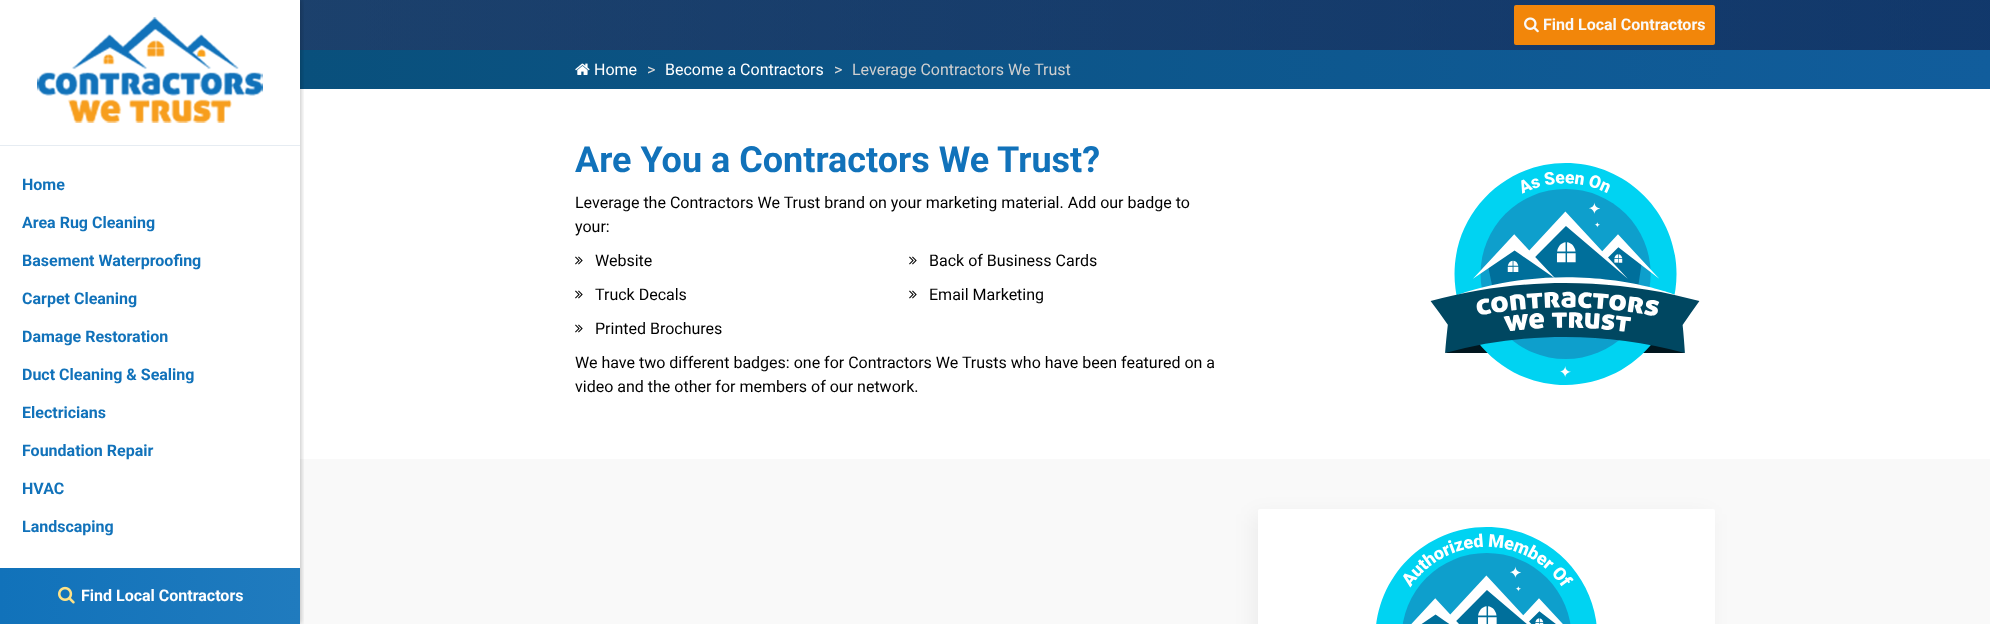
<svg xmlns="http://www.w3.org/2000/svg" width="1990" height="624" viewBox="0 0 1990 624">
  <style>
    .t1 { font: bold 16px Roboto; fill: #1172ba; }
    .t2 { font: bold 16px Roboto; fill: #fff; }
    .t3 { font: bold 16px Roboto; fill: #f9f9f9; }
    .t4 { font: 16px Roboto; fill: #fff; }
    .t5 { font: 16px Roboto; fill: #dadada; }
    .t6 { font: 16px Roboto; fill: #cfcfcf; }
    .t7 { font: bold 36px Roboto; fill: #1172ba; }
    .t8 { font: 16px Roboto; fill: #000; }
  </style>
  <defs>
    <linearGradient id="g1" gradientUnits="userSpaceOnUse" x1="1990" y1="45" x2="300" y2="44"><stop offset="0" stop-color="#115d9c"/><stop offset="1" stop-color="#09507c"/></linearGradient>
    <linearGradient id="g2" gradientUnits="userSpaceOnUse" x1="300" y1="25" x2="1990" y2="25"><stop offset="0" stop-color="#2e315c" stop-opacity="0.5"/><stop offset="1" stop-color="#12143b" stop-opacity="0.5"/></linearGradient>
    <clipPath id="clip1"><rect x="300" y="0" width="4" height="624"/></clipPath>
    <linearGradient id="g3" gradientUnits="userSpaceOnUse" x1="0" y1="596" x2="300" y2="596"><stop offset="0" stop-color="#1172ba"/><stop offset="1" stop-color="#207bbe"/></linearGradient>
  </defs>
  <rect width="100%" height="100%" fill="#fff"/>
  <rect x="300" y="0" width="1690" height="89" fill="url(#g1)"/>
  <rect x="300" y="0" width="1690" height="50" fill="url(#g2)"/>
  <rect x="300" y="459" width="1690" height="165" fill="#f9f9f9"/>
  <g clip-path="url(#clip1)">
    <rect x="1" y="0" width="300" height="624" fill="#0000003d" filter="blur(2.5px)"/>
  </g>
  <rect x="0" y="145" width="300" height="1" fill="#e6ecf2"/>
  <image x="37" y="17" width="226" height="106" href="images/1.png"/>
  <text x="22" y="190" class="t1">Home</text>
  <text x="22" y="228" class="t1">Area Rug Cleaning</text>
  <text x="22" y="266" class="t1">Basement Waterproofing</text>
  <text x="22" y="304" class="t1">Carpet Cleaning</text>
  <text x="22" y="342" class="t1">Damage Restoration</text>
  <text x="22" y="380" class="t1">Duct Cleaning &amp; Sealing</text>
  <text x="22" y="418" class="t1">Electricians</text>
  <text x="22" y="456" class="t1">Foundation Repair</text>
  <text x="22" y="494" class="t1">HVAC</text>
  <text x="22" y="532" class="t1">Landscaping</text>
  <rect x="0" y="568" width="300" height="56" fill="url(#g3)"/>
  <image x="58" y="586" width="17" height="18" href="images/2.png"/>
  <text x="81" y="601" class="t2">Find Local Contractors</text>
  <rect x="1514" y="5" width="201" height="40" rx="2" fill="#f2860a"/>
  <image x="1524" y="17" width="15" height="16" href="images/3.png"/>
  <text x="1543" y="30" class="t3">Find Local Contractors</text>
  <image x="575" y="63" width="15" height="12" href="images/4.png"/>
  <text x="594" y="75" class="t4">Home</text>
  <text x="647" y="75" class="t5">&gt;</text>
  <text x="665" y="75" class="t4">Become a Contractors</text>
  <text x="834" y="75" class="t5">&gt;</text>
  <text x="852" y="75" class="t6">Leverage Contractors We Trust</text>
  <text x="575" y="172" class="t7">Are You a Contractors We Trust?</text>
  <text x="575" y="208" class="t8">Leverage the Contractors We Trust brand on your marketing material. Add our badge to</text>
  <text x="575" y="232" class="t8">your:</text>
  <image x="575" y="256" width="8" height="9" href="images/5.png"/>
  <text x="595" y="266" class="t8">Website</text>
  <image x="909" y="256" width="8" height="9" href="images/5.png"/>
  <text x="929" y="266" class="t8">Back of Business Cards</text>
  <image x="575" y="290" width="8" height="9" href="images/5.png"/>
  <text x="595" y="300" class="t8">Truck Decals</text>
  <image x="909" y="290" width="8" height="9" href="images/5.png"/>
  <text x="929" y="300" class="t8">Email Marketing</text>
  <image x="575" y="324" width="8" height="9" href="images/5.png"/>
  <text x="595" y="334" class="t8">Printed Brochures</text>
  <text x="575" y="368" class="t8">We have two different badges: one for Contractors We Trusts who have been featured on a</text>
  <text x="575" y="392" class="t8">video and the other for members of our network.</text>
  <image x="1430" y="163" width="270" height="222" href="images/6.png"/>
  <rect x="1253" y="514" width="457" height="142" rx="2" fill="#0000000d" filter="blur(10px)"/>
  <rect x="1258" y="509" width="457" height="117" rx="2" fill="#fff"/>
  <image x="1376" y="527" width="221" height="97" href="images/7.png"/>
</svg>
